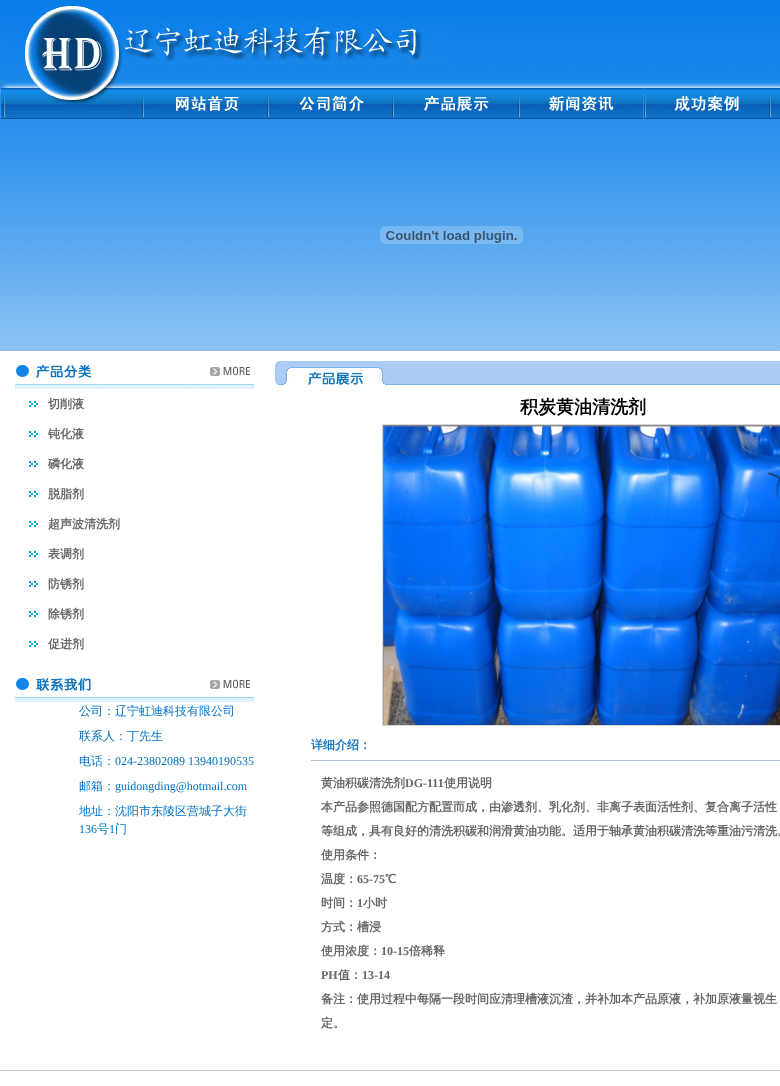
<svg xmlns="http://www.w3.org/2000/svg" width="780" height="1086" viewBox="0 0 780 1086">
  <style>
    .t1 { font: bold 12px WenQuanYi Zen Hei; fill: #666; }
    .t2 { font: 500 12px WenQuanYi Zen Hei; fill: #0171c5; }
    .t3 { font: 12px Liberation Serif; fill: #0171c5; }
    .t4 { font: bold 18px WenQuanYi Zen Hei; fill: #000; }
    .t5 { font: bold 12px WenQuanYi Zen Hei; fill: #0f74bc; }
    .t6 { font: bold 12px Liberation Serif; fill: #666; }
  </style>
  <rect width="100%" height="100%" fill="#fff"/>
  <image x="0" y="0" width="780" height="351" href="images/1.png"/>
  <image x="0" y="0" width="123" height="119" href="images/2.png"/>
  <image x="123" y="19" width="329" height="45" href="images/3.png"/>
  <image x="123" y="82" width="657" height="6" href="images/4.png"/>
  <image x="123" y="88" width="21" height="31" href="images/5.png"/>
  <image x="144" y="88" width="123" height="31" href="images/6.png"/>
  <image x="267" y="88" width="2" height="31" href="images/7.png"/>
  <image x="269" y="88" width="123" height="31" href="images/8.png"/>
  <image x="392" y="88" width="2" height="31" href="images/7.png"/>
  <image x="394" y="88" width="124" height="31" href="images/9.png"/>
  <image x="518" y="88" width="2" height="31" href="images/7.png"/>
  <image x="520" y="88" width="123" height="31" href="images/10.png"/>
  <image x="644" y="88" width="2" height="31" href="images/7.png"/>
  <image x="646" y="88" width="123" height="31" href="images/11.png"/>
  <image x="769" y="88" width="2" height="31" href="images/7.png"/>
  <image x="771" y="88" width="9" height="31" href="images/12.png"/>
  <image x="380" y="226" width="143" height="18" href="images/13.png"/>
  <image x="15" y="363" width="192" height="26" href="images/14.png"/>
  <image x="207" y="365" width="47" height="24" href="images/15.png"/>
  <image x="28" y="401" width="10" height="6" href="images/16.png"/>
  <text x="48" y="408" class="t1">切削液</text>
  <image x="28" y="431" width="10" height="6" href="images/16.png"/>
  <text x="48" y="438" class="t1">钝化液</text>
  <image x="28" y="461" width="10" height="6" href="images/16.png"/>
  <text x="48" y="468" class="t1">磷化液</text>
  <image x="28" y="491" width="10" height="6" href="images/16.png"/>
  <text x="48" y="498" class="t1">脱脂剂</text>
  <image x="28" y="521" width="10" height="6" href="images/16.png"/>
  <text x="48" y="528" class="t1">超声波清洗剂</text>
  <image x="28" y="551" width="10" height="6" href="images/16.png"/>
  <text x="48" y="558" class="t1">表调剂</text>
  <image x="28" y="581" width="10" height="6" href="images/16.png"/>
  <text x="48" y="588" class="t1">防锈剂</text>
  <image x="28" y="611" width="10" height="6" href="images/16.png"/>
  <text x="48" y="618" class="t1">除锈剂</text>
  <image x="28" y="641" width="10" height="6" href="images/16.png"/>
  <text x="48" y="648" class="t1">促进剂</text>
  <image x="15" y="674" width="192" height="28" href="images/17.png"/>
  <image x="207" y="678" width="47" height="24" href="images/15.png"/>
  <text x="79" y="715" class="t2">公司：辽宁虹迪科技有限公司</text>
  <text x="79" y="740" class="t2">联系人：丁先生</text>
  <text x="79" y="765" class="t2">电话：</text>
  <text x="115" y="765" class="t3">024-23802089 13940190535</text>
  <text x="79" y="790" class="t2">邮箱：</text>
  <text x="115" y="790" class="t3">guidongding@hotmail.com</text>
  <text x="79" y="815" class="t2">地址：沈阳市东陵区营城子大街</text>
  <text x="79" y="833" class="t3">136</text>
  <text x="97" y="833" class="t2">号</text>
  <text x="109" y="833" class="t3">1</text>
  <text x="115" y="833" class="t2">门</text>
  <image x="275" y="361" width="505" height="24" href="images/18.png"/>
  <text x="520" y="413" class="t4">积炭黄油清洗剂</text>
  <rect x="382.5" y="424.5" width="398" height="301" fill="none" stroke="#d7d5d6"/>
  <image x="383" y="425" width="397" height="300" href="images/19.png"/>
  <text x="311" y="749" class="t5">详细介绍：</text>
  <rect x="311" y="760" width="469" height="1" fill="#aebdce"/>
  <text x="321" y="787" class="t1">黄油积碳清洗剂</text>
  <text x="405" y="787" class="t6">DG-111</text>
  <text x="444" y="787" class="t1">使用说明</text>
  <text x="321" y="811" class="t1">本产品参照德国配方配置而成，由渗透剂、乳化剂、非离子表面活性剂、复合离子活性</text>
  <text x="321" y="835" class="t1">等组成，具有良好的清洗积碳和润滑黄油功能。适用于轴承黄油积碳清洗等重油污清洗。</text>
  <text x="321" y="859" class="t1">使用条件：</text>
  <text x="321" y="883" class="t1">温度：</text>
  <text x="357" y="883" class="t6">65-75</text>
  <text x="385" y="883" class="t1">℃</text>
  <text x="321" y="907" class="t1">时间：</text>
  <text x="357" y="907" class="t6">1</text>
  <text x="363" y="907" class="t1">小时</text>
  <text x="321" y="931" class="t1">方式：槽浸</text>
  <text x="321" y="955" class="t1">使用浓度：</text>
  <text x="381" y="955" class="t6">10-15</text>
  <text x="409" y="955" class="t1">倍稀释</text>
  <text x="321" y="979" class="t6">PH</text>
  <text x="338" y="979" class="t1">值：</text>
  <text x="362" y="979" class="t6">13-14</text>
  <text x="321" y="1003" class="t1">备注：使用过程中每隔一段时间应清理槽液沉渣，并补加本产品原液，补加原液量视生</text>
  <text x="321" y="1027" class="t1">定。</text>
  <rect x="0" y="1070" width="780" height="1" fill="#c7c7c7"/>
</svg>
